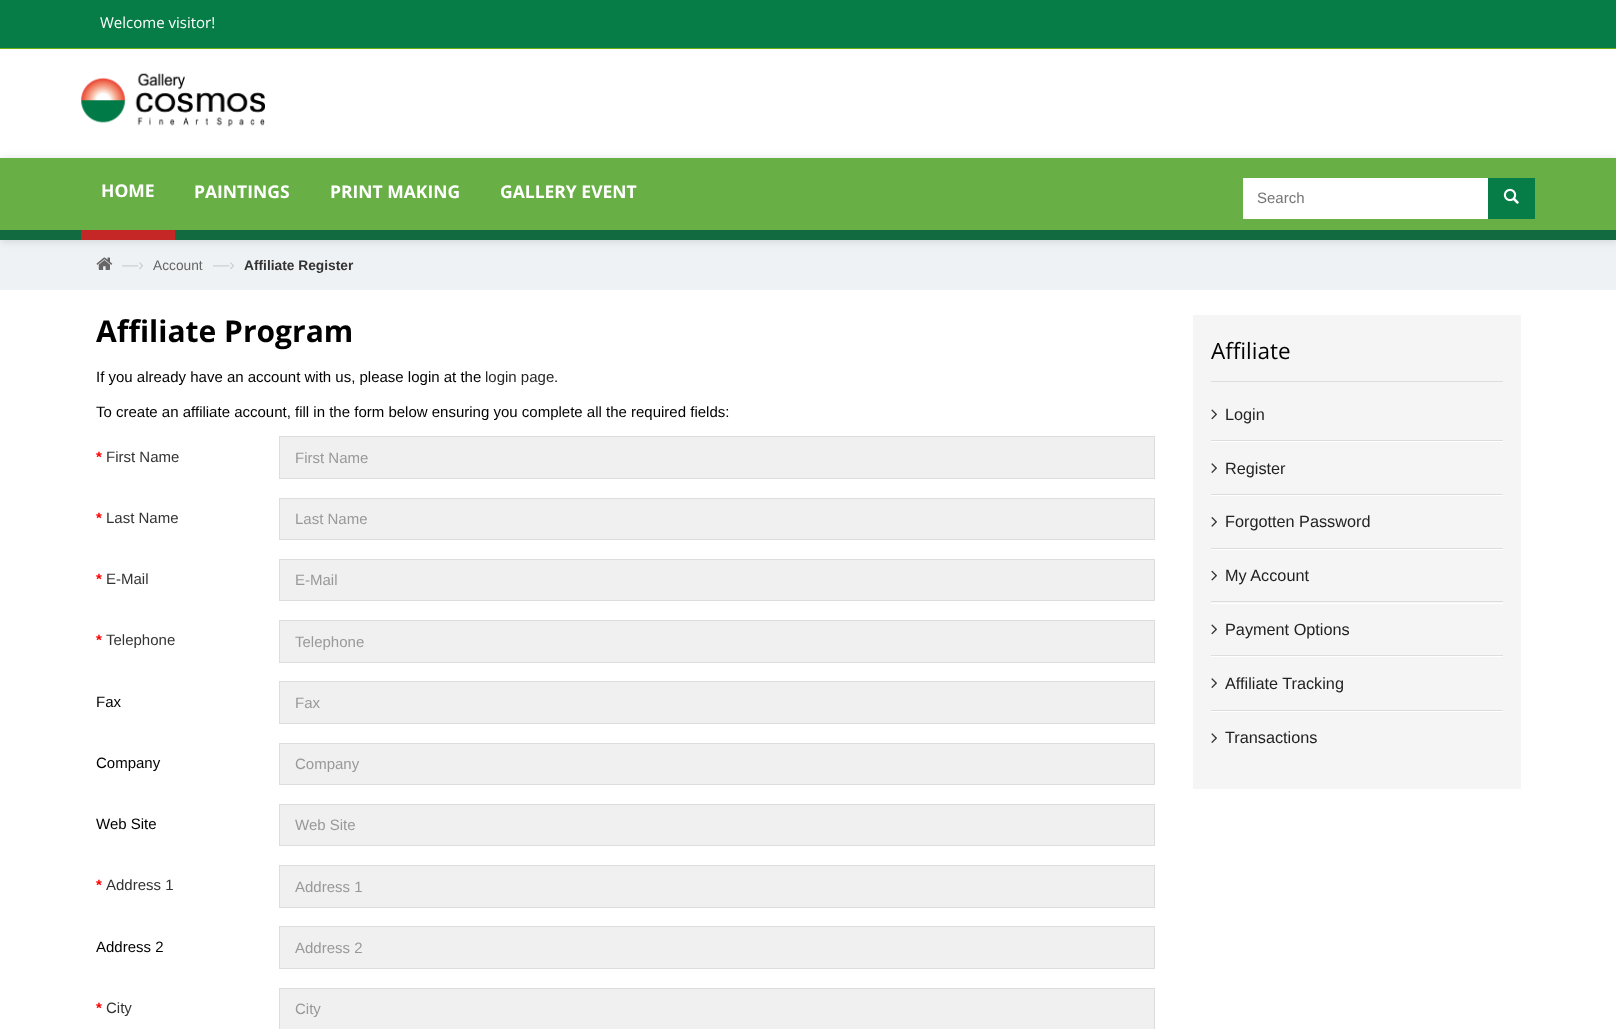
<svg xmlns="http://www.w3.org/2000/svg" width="1616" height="1029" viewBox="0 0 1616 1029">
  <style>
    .t1 { font: 15px Open Sans; fill: #fff; }
    .t2 { font: bold 17.5px Open Sans; fill: #fff; }
    .t3 { font: 15px Liberation Sans; fill: #757575; }
    .t4 { font: 16.25px Liberation Sans; fill: #ccc; }
    .t5 { font: 13.75px Liberation Sans; fill: #666; }
    .t6 { font: bold 13.75px Liberation Sans; fill: #333; }
    .t7 { font: bold 30px Open Sans; fill: #000; }
    .t8 { font: 15px Liberation Sans; fill: #000; }
    .t9 { font: 15px Liberation Sans; fill: #282828; }
    .t10 { font: bold 15px Liberation Sans; fill: #f00; }
    .t11 { font: 15px Liberation Sans; fill: #333; }
    .t12 { font: 15px Liberation Sans; fill: #999; }
    .t13 { font: 22.5px Open Sans; fill: #000; }
    .t14 { font: 16.25px Liberation Sans; fill: #222; }
  </style>
  <rect width="100%" height="100%" fill="#eff2f4"/>
  <rect x="0" y="0" width="1616" height="48" fill="#067d47"/>
  <rect x="0" y="48" width="1616" height="1" fill="#6aae12"/>
  <text x="100" y="28" class="t1">Welcome visitor!</text>
  <rect x="0" y="49" width="1616" height="109" fill="#fff"/>
  <image x="81" y="73" width="184" height="54" href="images/1.png"/>
  <rect x="1" y="159" width="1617" height="82" fill="#00000021" filter="blur(4px)"/>
  <rect x="0" y="158" width="1616" height="72" fill="#68b045"/>
  <rect x="0" y="230" width="1616" height="10" fill="#126a40"/>
  <rect x="81" y="230" width="94" height="10" fill="#c42726"/>
  <text x="101" y="197" class="t2">HOME</text>
  <text x="194" y="198" class="t2">PAINTINGS</text>
  <text x="330" y="198" class="t2">PRINT MAKING</text>
  <text x="500" y="198" class="t2">GALLERY EVENT</text>
  <rect x="1243" y="178" width="245" height="41" fill="#fff"/>
  <text x="1257" y="203" class="t3">Search</text>
  <rect x="1488" y="178" width="47" height="41" fill="#067d47"/>
  <image x="1503" y="188" width="16" height="16" href="images/2.png"/>
  <image x="96" y="257" width="17" height="13" href="images/3.png"/>
  <text x="122" y="270" class="t4">—›</text>
  <text x="153" y="270" class="t5">Account</text>
  <text x="213" y="270" class="t4">—›</text>
  <text x="244" y="270" class="t6">Affiliate Register</text>
  <rect x="0" y="290" width="1616" height="739" fill="#fff"/>
  <text x="96" y="342" class="t7">Affiliate Program</text>
  <text x="96" y="382" class="t8">If you already have an account with us, please login at the</text>
  <text x="485" y="382" class="t9">login page</text>
  <text x="554" y="382" class="t8">.</text>
  <text x="96" y="417" class="t8">To create an affiliate account, fill in the form below ensuring you complete all the required fields:</text>
  <text x="96" y="462" class="t10">*</text>
  <text x="106" y="462" class="t11">First Name</text>
  <rect x="279.5" y="436.5" width="875" height="42" fill="#f0f0f0" stroke="#ddd"/>
  <text x="295" y="463" class="t12">First Name</text>
  <text x="96" y="523" class="t10">*</text>
  <text x="106" y="523" class="t11">Last Name</text>
  <rect x="279.5" y="498.5" width="875" height="41" fill="#f0f0f0" stroke="#ddd"/>
  <text x="295" y="524" class="t12">Last Name</text>
  <text x="96" y="584" class="t10">*</text>
  <text x="106" y="584" class="t11">E-Mail</text>
  <rect x="279.5" y="559.5" width="875" height="41" fill="#f0f0f0" stroke="#ddd"/>
  <text x="295" y="585" class="t12">E-Mail</text>
  <text x="96" y="645" class="t10">*</text>
  <text x="106" y="645" class="t11">Telephone</text>
  <rect x="279.5" y="620.5" width="875" height="42" fill="#f0f0f0" stroke="#ddd"/>
  <text x="295" y="647" class="t12">Telephone</text>
  <text x="96" y="707" class="t8">Fax</text>
  <rect x="279.5" y="681.5" width="875" height="42" fill="#f0f0f0" stroke="#ddd"/>
  <text x="295" y="708" class="t12">Fax</text>
  <text x="96" y="768" class="t8">Company</text>
  <rect x="279.5" y="743.5" width="875" height="41" fill="#f0f0f0" stroke="#ddd"/>
  <text x="295" y="769" class="t12">Company</text>
  <text x="96" y="829" class="t8">Web Site</text>
  <rect x="279.5" y="804.5" width="875" height="41" fill="#f0f0f0" stroke="#ddd"/>
  <text x="295" y="830" class="t12">Web Site</text>
  <text x="96" y="890" class="t10">*</text>
  <text x="106" y="890" class="t11">Address 1</text>
  <rect x="279.5" y="865.5" width="875" height="42" fill="#f0f0f0" stroke="#ddd"/>
  <text x="295" y="892" class="t12">Address 1</text>
  <text x="96" y="952" class="t8">Address 2</text>
  <rect x="279.5" y="926.5" width="875" height="42" fill="#f0f0f0" stroke="#ddd"/>
  <text x="295" y="953" class="t12">Address 2</text>
  <text x="96" y="1013" class="t10">*</text>
  <text x="106" y="1013" class="t11">City</text>
  <rect x="279.5" y="988.5" width="875" height="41" fill="#f0f0f0" stroke="#ddd"/>
  <text x="295" y="1014" class="t12">City</text>
  <rect x="1193" y="315" width="328" height="474" fill="#f5f5f5"/>
  <rect x="1211" y="381" width="292" height="1" fill="#ddd"/>
  <text x="1211" y="359" class="t13">Affiliate</text>
  <rect x="1211" y="440" width="292" height="1" fill="#ddd"/>
  <image x="1211" y="409" width="6" height="11" href="images/4.png"/>
  <text x="1225" y="420" class="t14">Login</text>
  <rect x="1211" y="441" width="292" height="1" fill="#fff"/>
  <rect x="1211" y="494" width="292" height="1" fill="#ddd"/>
  <image x="1211" y="463" width="6" height="10" href="images/5.png"/>
  <text x="1225" y="474" class="t14">Register</text>
  <rect x="1211" y="495" width="292" height="1" fill="#fff"/>
  <rect x="1211" y="548" width="292" height="1" fill="#ddd"/>
  <image x="1211" y="517" width="6" height="10" href="images/6.png"/>
  <text x="1225" y="527" class="t14">Forgotten Password</text>
  <rect x="1211" y="549" width="292" height="1" fill="#fff"/>
  <rect x="1211" y="601" width="292" height="1" fill="#ddd"/>
  <image x="1211" y="570" width="6" height="11" href="images/7.png"/>
  <text x="1225" y="581" class="t14">My Account</text>
  <rect x="1211" y="603" width="292" height="1" fill="#fff"/>
  <rect x="1211" y="655" width="292" height="1" fill="#ddd"/>
  <image x="1211" y="624" width="6" height="11" href="images/4.png"/>
  <text x="1225" y="635" class="t14">Payment Options</text>
  <rect x="1211" y="656" width="292" height="1" fill="#fff"/>
  <rect x="1211" y="710" width="292" height="1" fill="#ddd"/>
  <image x="1211" y="678" width="6" height="10" href="images/5.png"/>
  <text x="1225" y="689" class="t14">Affiliate Tracking</text>
  <rect x="1211" y="711" width="292" height="1" fill="#fff"/>
  <image x="1211" y="733" width="6" height="10" href="images/5.png"/>
  <text x="1225" y="743" class="t14">Transactions</text>
</svg>
